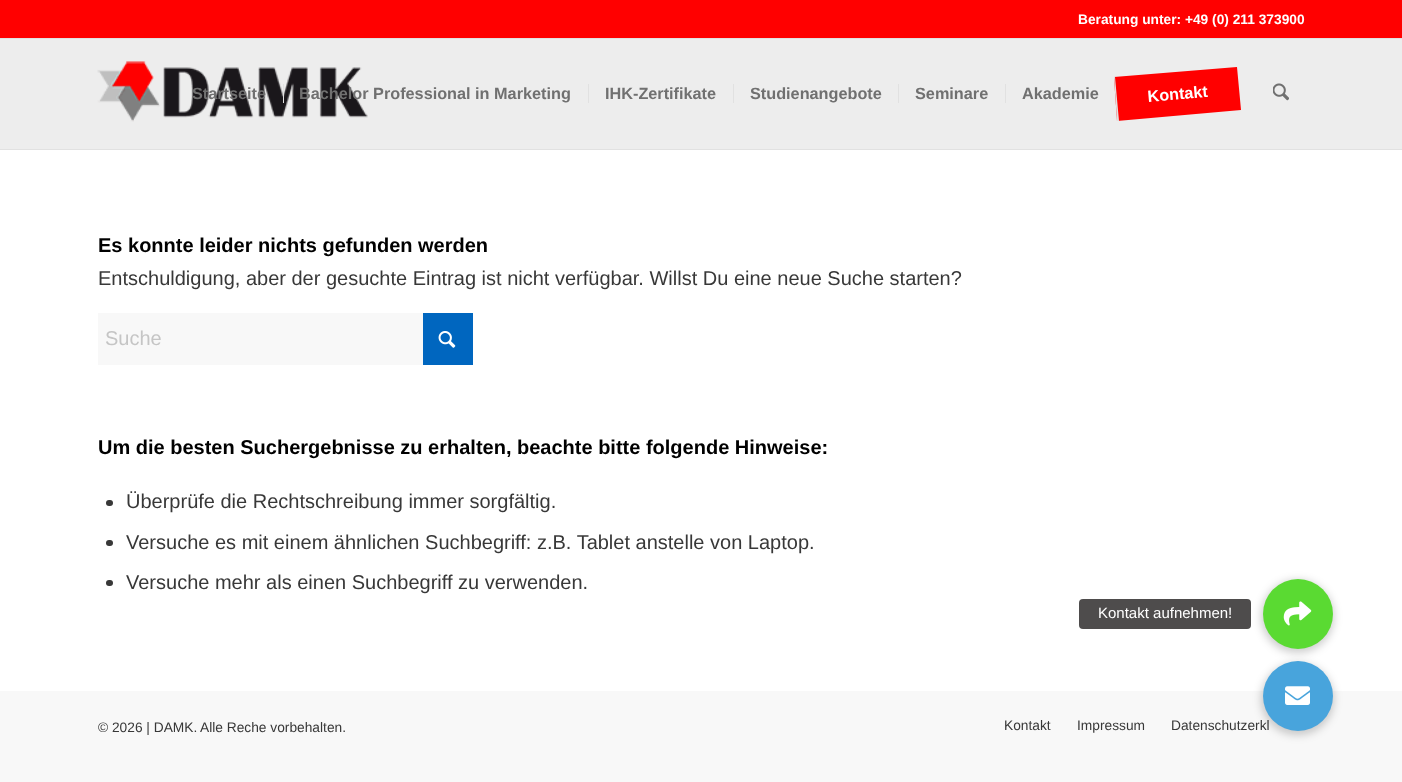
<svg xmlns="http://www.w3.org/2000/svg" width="1402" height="782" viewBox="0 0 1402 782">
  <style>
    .t1 { font: bold 13.75px Liberation Sans; fill: #fff; }
    .t2 { font: bold 16.25px Liberation Sans; fill: #707070; }
    .t3 { font: bold 16.25px Liberation Sans; fill: #fff; }
    .t4 { font: bold 20px Liberation Sans; fill: #000; }
    .t5 { font: 20px Liberation Sans; fill: #383838; }
    .t6 { font: 20px Liberation Sans; fill: #c5c5c5; }
    .t7 { font: 13.75px Liberation Sans; fill: #383838; }
    .t8 { font: 15px Liberation Sans; fill: #fff; }
  </style>
  <rect width="100%" height="100%" fill="#f8f8f8"/>
  <rect x="0" y="0" width="1402" height="38" fill="#f00"/>
  <rect x="0" y="38" width="1402" height="1" fill="#e1e1e1"/>
  <text x="1078" y="24" class="t1">Beratung unter: +49 (0) 211 373900</text>
  <rect x="0" y="149" width="1402" height="1" fill="#e1e1e1"/>
  <rect x="0" y="39" width="1402" height="110" fill="#ededed"/>
  <image x="97" y="61" width="271" height="61" href="images/1.png"/>
  <text x="192" y="99" class="t2">Startseite</text>
  <text x="299" y="99" class="t2">Bachelor Professional in Marketing</text>
  <rect x="283" y="84" width="1" height="19" fill="#e1e1e1"/>
  <text x="605" y="99" class="t2">IHK-Zertifikate</text>
  <rect x="588" y="84" width="1" height="19" fill="#e1e1e1"/>
  <text x="750" y="99" class="t2">Studienangebote</text>
  <rect x="733" y="84" width="1" height="19" fill="#e1e1e1"/>
  <text x="915" y="99" class="t2">Seminare</text>
  <rect x="898" y="84" width="1" height="19" fill="#e1e1e1"/>
  <text x="1022" y="99" class="t2">Akademie</text>
  <rect x="1005" y="84" width="1" height="19" fill="#e1e1e1"/>
  <path d="M1114 77L1237 67L1241 110L1117 121Z" fill="#f00"/>
  <text x="1148" y="102" transform="rotate(-5 1148 102)" class="t3">Kontakt</text>
  <path d="M1114 77H1115L1119 121H1117Z" fill="#e1e1e1"/>
  <image x="1273" y="83" width="16" height="18" href="images/2.png"/>
  <rect x="0" y="150" width="1402" height="541" fill="#fff"/>
  <text x="98" y="252" class="t4">Es konnte leider nichts gefunden werden</text>
  <text x="98" y="285" class="t5">Entschuldigung, aber der gesuchte Eintrag ist nicht verfügbar. Willst Du eine neue Suche starten?</text>
  <rect x="98" y="313" width="325" height="52" fill="#f8f8f8"/>
  <text x="105" y="345" class="t6">Suche</text>
  <rect x="423" y="313" width="50" height="52" fill="#0066bf"/>
  <image x="438" y="331" width="18" height="17" href="images/3.png"/>
  <text x="98" y="454" class="t4">Um die besten Suchergebnisse zu erhalten, beachte bitte folgende Hinweise:</text>
  <rect x="106" y="500" width="7" height="6" rx="3" fill="#383838"/>
  <text x="126" y="508" class="t5">Überprüfe die Rechtschreibung immer sorgfältig.</text>
  <rect x="106" y="540" width="7" height="6" rx="3" fill="#383838"/>
  <text x="126" y="549" class="t5">Versuche es mit einem ähnlichen Suchbegriff: z.B. Tablet anstelle von Laptop.</text>
  <rect x="106" y="580" width="7" height="6" rx="3" fill="#383838"/>
  <text x="126" y="589" class="t5">Versuche mehr als einen Suchbegriff zu verwenden.</text>
  <text x="98" y="732" class="t7">© 2026 | DAMK.</text>
  <text x="200" y="732" class="t7">Alle Reche vorbehalten.</text>
  <text x="1004" y="730" class="t7">Kontakt</text>
  <text x="1077" y="730" class="t7">Impressum</text>
  <text x="1171" y="730" class="t7">Datenschutzerkl</text>
  <rect x="1261" y="663" width="73" height="72" rx="36" fill="#00000033" filter="blur(4px)"/>
  <circle cx="1298" cy="696" r="35" fill="#48a4dc"/>
  <rect x="1261" y="580" width="73" height="73" rx="36.5" fill="#00000033" filter="blur(4px)"/>
  <circle cx="1298" cy="614" r="35" fill="#5ada32"/>
  <rect x="1079" y="599" width="172" height="30" rx="4" fill="#4e4c4c"/>
  <text x="1098" y="618" class="t8">Kontakt aufnehmen!</text>
  <image x="1283" y="601" width="29" height="25" href="images/4.png"/>
  <image x="1285" y="686" width="25" height="19" href="images/5.png"/>
</svg>
